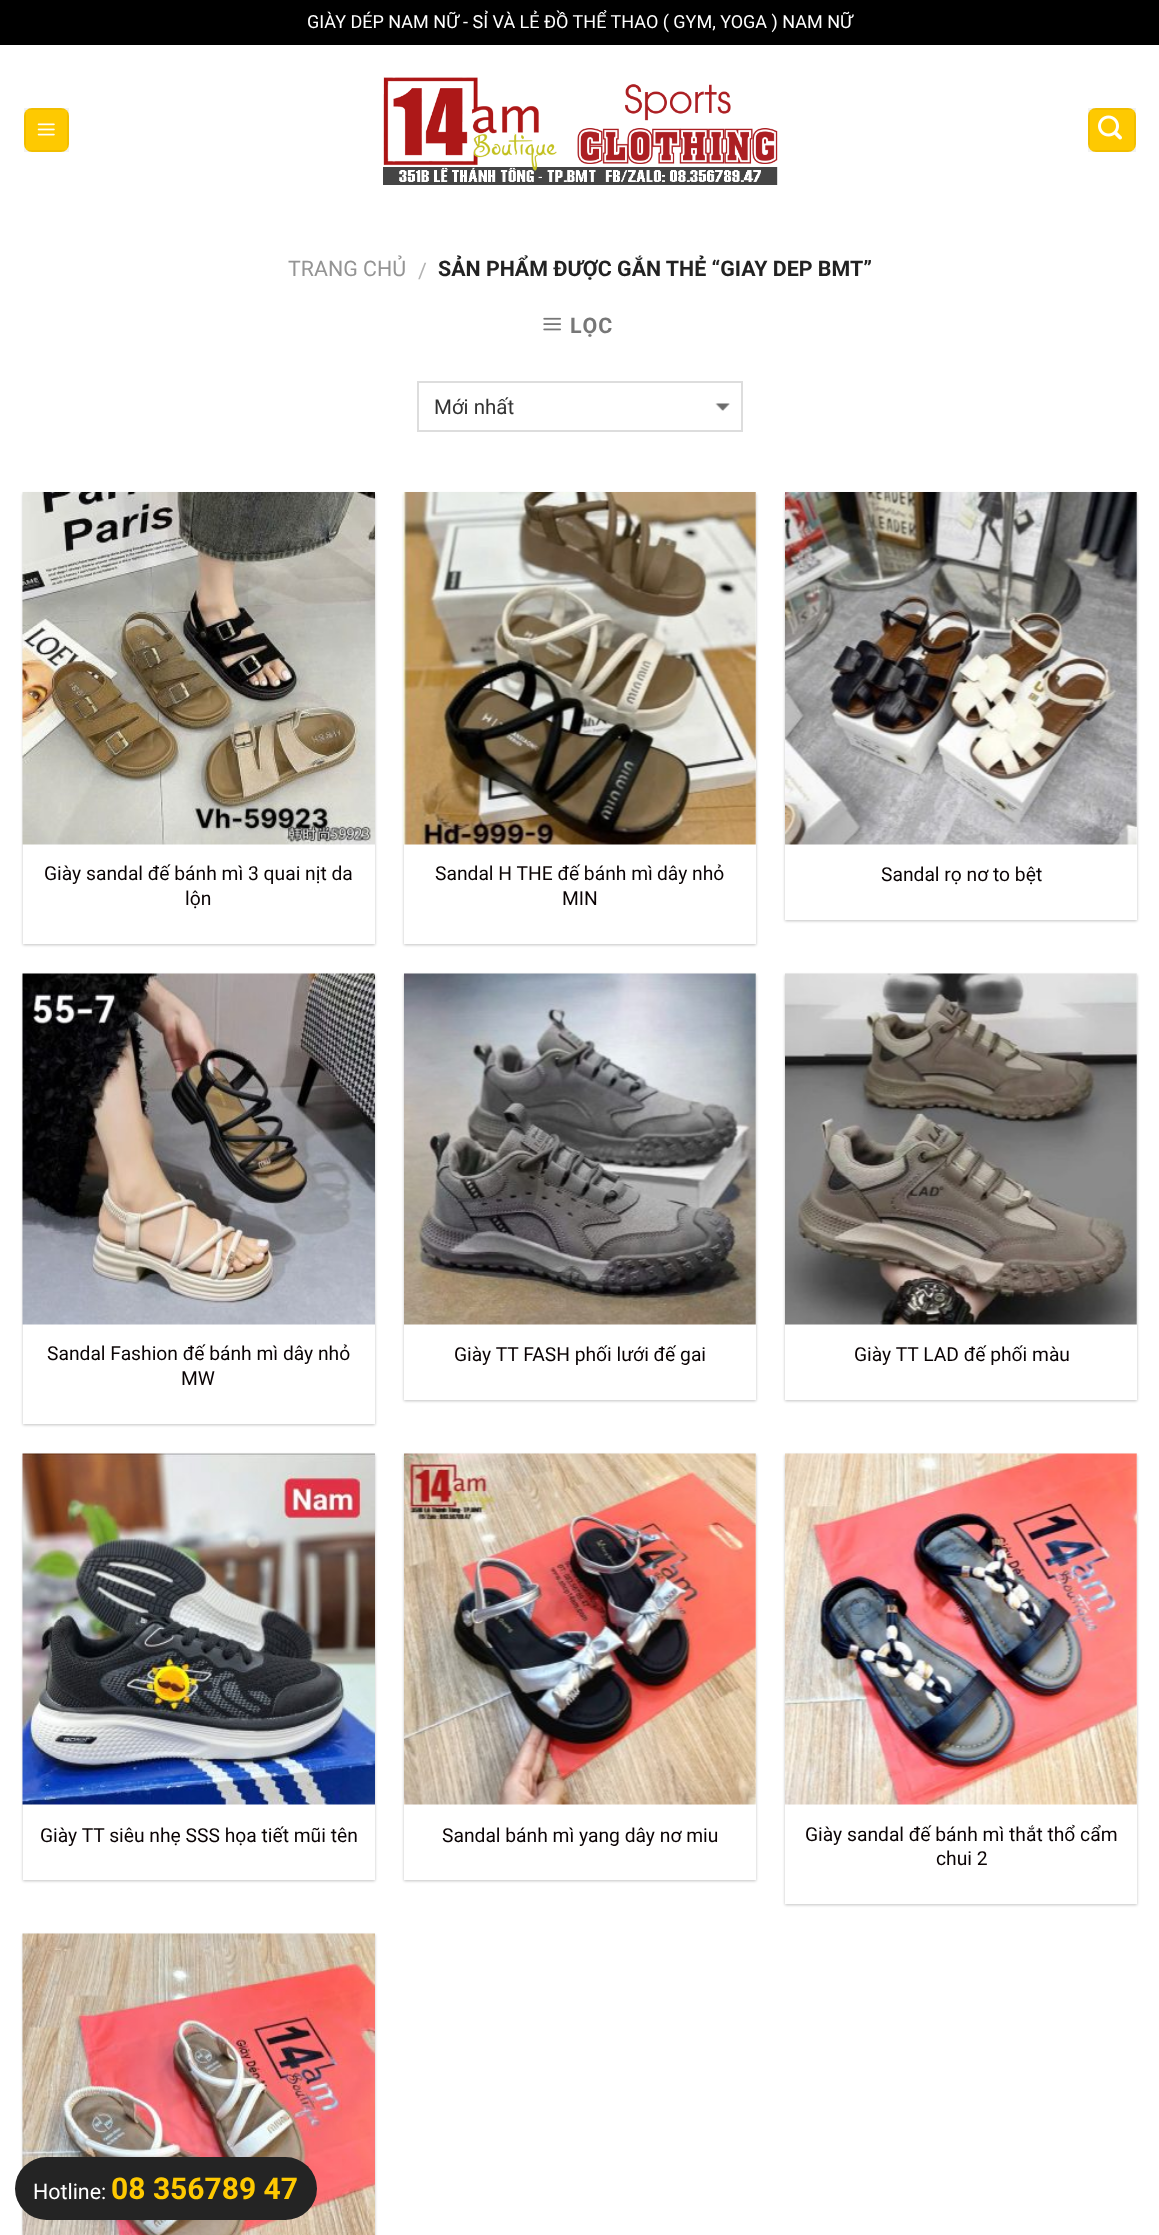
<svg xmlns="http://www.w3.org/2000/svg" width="1159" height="2235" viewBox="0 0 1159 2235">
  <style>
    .t1 { font: 18px Roboto; fill: #fff; }
    .t2 { font: 21.4px Roboto; fill: #949494; }
    .t3 { font: 21.4px Roboto; fill: #b2b2b2; }
    .t4 { font: bold 21.4px Roboto; fill: #222; }
    .t5 { font: bold 21.4px Roboto; letter-spacing: 1px; fill: #777; }
    .t6 { font: 20.5px Roboto; fill: #333; }
    .t7 { font: 19.25px Roboto; fill: #0a0304; }
    .t8 { font: 21.4px Roboto; fill: #fff; }
    .t9 { font: bold 30px Roboto; fill: #fec901; }
  </style>
  <rect width="100%" height="100%" fill="#fff"/>
  <rect x="0" y="0" width="1159" height="45" fill="#000"/>
  <text x="307" y="28" class="t1">GIÀY DÉP NAM NỮ - SỈ VÀ LẺ ĐỒ THỂ THAO ( GYM, YOGA ) NAM NỮ</text>
  <rect x="24" y="108" width="45" height="44" rx="8" fill="#fec901"/>
  <rect x="25" y="109" width="43" height="42" fill="none" stroke="#0000000d" stroke-width="2"/>
  <image x="37" y="123" width="18" height="13" href="images/1.png"/>
  <image x="383" y="76" width="395" height="109" href="images/2.png"/>
  <rect x="1088" y="108" width="48" height="44" rx="8" fill="#fec901"/>
  <rect x="1089" y="109" width="46" height="42" fill="none" stroke="#0000000d" stroke-width="2"/>
  <image x="1098" y="115" width="24" height="25" href="images/3.png"/>
  <text x="288" y="276" class="t2">TRANG CHỦ</text>
  <text x="418" y="278" class="t3">/</text>
  <text x="438" y="276" class="t4">SẢN PHẨM ĐƯỢC GẮN THẺ “GIAY DEP BMT”</text>
  <image x="543" y="317" width="18" height="14" href="images/4.png"/>
  <text x="570" y="333" class="t5">LỌC</text>
  <image x="715" y="403" width="15" height="8" href="images/5.png"/>
  <rect x="418" y="382" width="324" height="49" fill="none" stroke="#ddd" stroke-width="2"/>
  <text x="434" y="414" class="t6">Mới nhất</text>
  <rect x="23" y="494" width="352" height="451" fill="#0000003d" filter="blur(1.5px)"/>
  <rect x="23" y="844" width="352" height="100" fill="#fff"/>
  <image x="22" y="492" width="353" height="353" href="images/6.png"/>
  <text x="44" y="880" class="t7">Giày sandal đế bánh mì 3 quai nịt da</text>
  <text x="185" y="905" class="t7">lộn</text>
  <rect x="404" y="494" width="352" height="451" fill="#0000003d" filter="blur(1.5px)"/>
  <rect x="404" y="492" width="352" height="452" fill="#fff"/>
  <image x="403" y="492" width="353" height="353" href="images/7.png"/>
  <text x="435" y="880" class="t7">Sandal H THE đế bánh mì</text>
  <text x="657" y="880" class="t7">dây nhỏ</text>
  <text x="562" y="905" class="t7">MIN</text>
  <rect x="785" y="494" width="352" height="427" fill="#0000003d" filter="blur(1.5px)"/>
  <rect x="785" y="492" width="352" height="428" fill="#fff"/>
  <image x="785" y="492" width="352" height="353" href="images/8.png"/>
  <text x="881" y="881" class="t7">Sandal rọ nơ to bệt</text>
  <rect x="23" y="975" width="352" height="450" fill="#0000003d" filter="blur(1.5px)"/>
  <rect x="23" y="1324" width="352" height="100" fill="#fff"/>
  <image x="22" y="973" width="353" height="352" href="images/9.png"/>
  <text x="47" y="1360" class="t7">Sandal Fashion đế bánh mì dây nhỏ</text>
  <text x="181" y="1385" class="t7">MW</text>
  <rect x="404" y="975" width="352" height="426" fill="#0000003d" filter="blur(1.5px)"/>
  <rect x="404" y="974" width="352" height="426" fill="#fff"/>
  <image x="404" y="973" width="352" height="352" href="images/10.png"/>
  <text x="454" y="1361" class="t7">Giày TT FASH phối lưới đế gai</text>
  <rect x="785" y="975" width="352" height="426" fill="#0000003d" filter="blur(1.5px)"/>
  <rect x="785" y="974" width="352" height="426" fill="#fff"/>
  <image x="785" y="973" width="352" height="352" href="images/11.png"/>
  <text x="854" y="1361" class="t7">Giày TT LAD đế phối màu</text>
  <rect x="23" y="1455" width="352" height="426" fill="#0000003d" filter="blur(1.5px)"/>
  <rect x="23" y="1804" width="352" height="76" fill="#fff"/>
  <image x="22" y="1453" width="353" height="352" href="images/12.png"/>
  <text x="40" y="1842" class="t7">Giày TT siêu nhẹ SSS họa tiết mũi tên</text>
  <rect x="404" y="1455" width="352" height="426" fill="#0000003d" filter="blur(1.5px)"/>
  <rect x="404" y="1454" width="352" height="426" fill="#fff"/>
  <image x="404" y="1453" width="352" height="352" href="images/13.png"/>
  <text x="442" y="1842" class="t7">Sandal bánh mì yang dây nơ miu</text>
  <rect x="785" y="1455" width="352" height="450" fill="#0000003d" filter="blur(1.5px)"/>
  <rect x="785" y="1454" width="352" height="450" fill="#fff"/>
  <image x="785" y="1453" width="352" height="352" href="images/14.png"/>
  <text x="805" y="1841" class="t7">Giày sandal đế bánh mì thắt thổ cẩm</text>
  <text x="936" y="1865" class="t7">chui 2</text>
  <rect x="23" y="1935" width="352" height="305" fill="#0000003d" filter="blur(1.5px)"/>
  <image x="22" y="1933" width="353" height="302" href="images/15.png"/>
  <rect x="15" y="2157" width="302" height="63" rx="31.5" fill="#242424"/>
  <text x="33" y="2199" class="t8">Hotline:</text>
  <text x="111" y="2199" class="t9">08 356789 47</text>
</svg>
